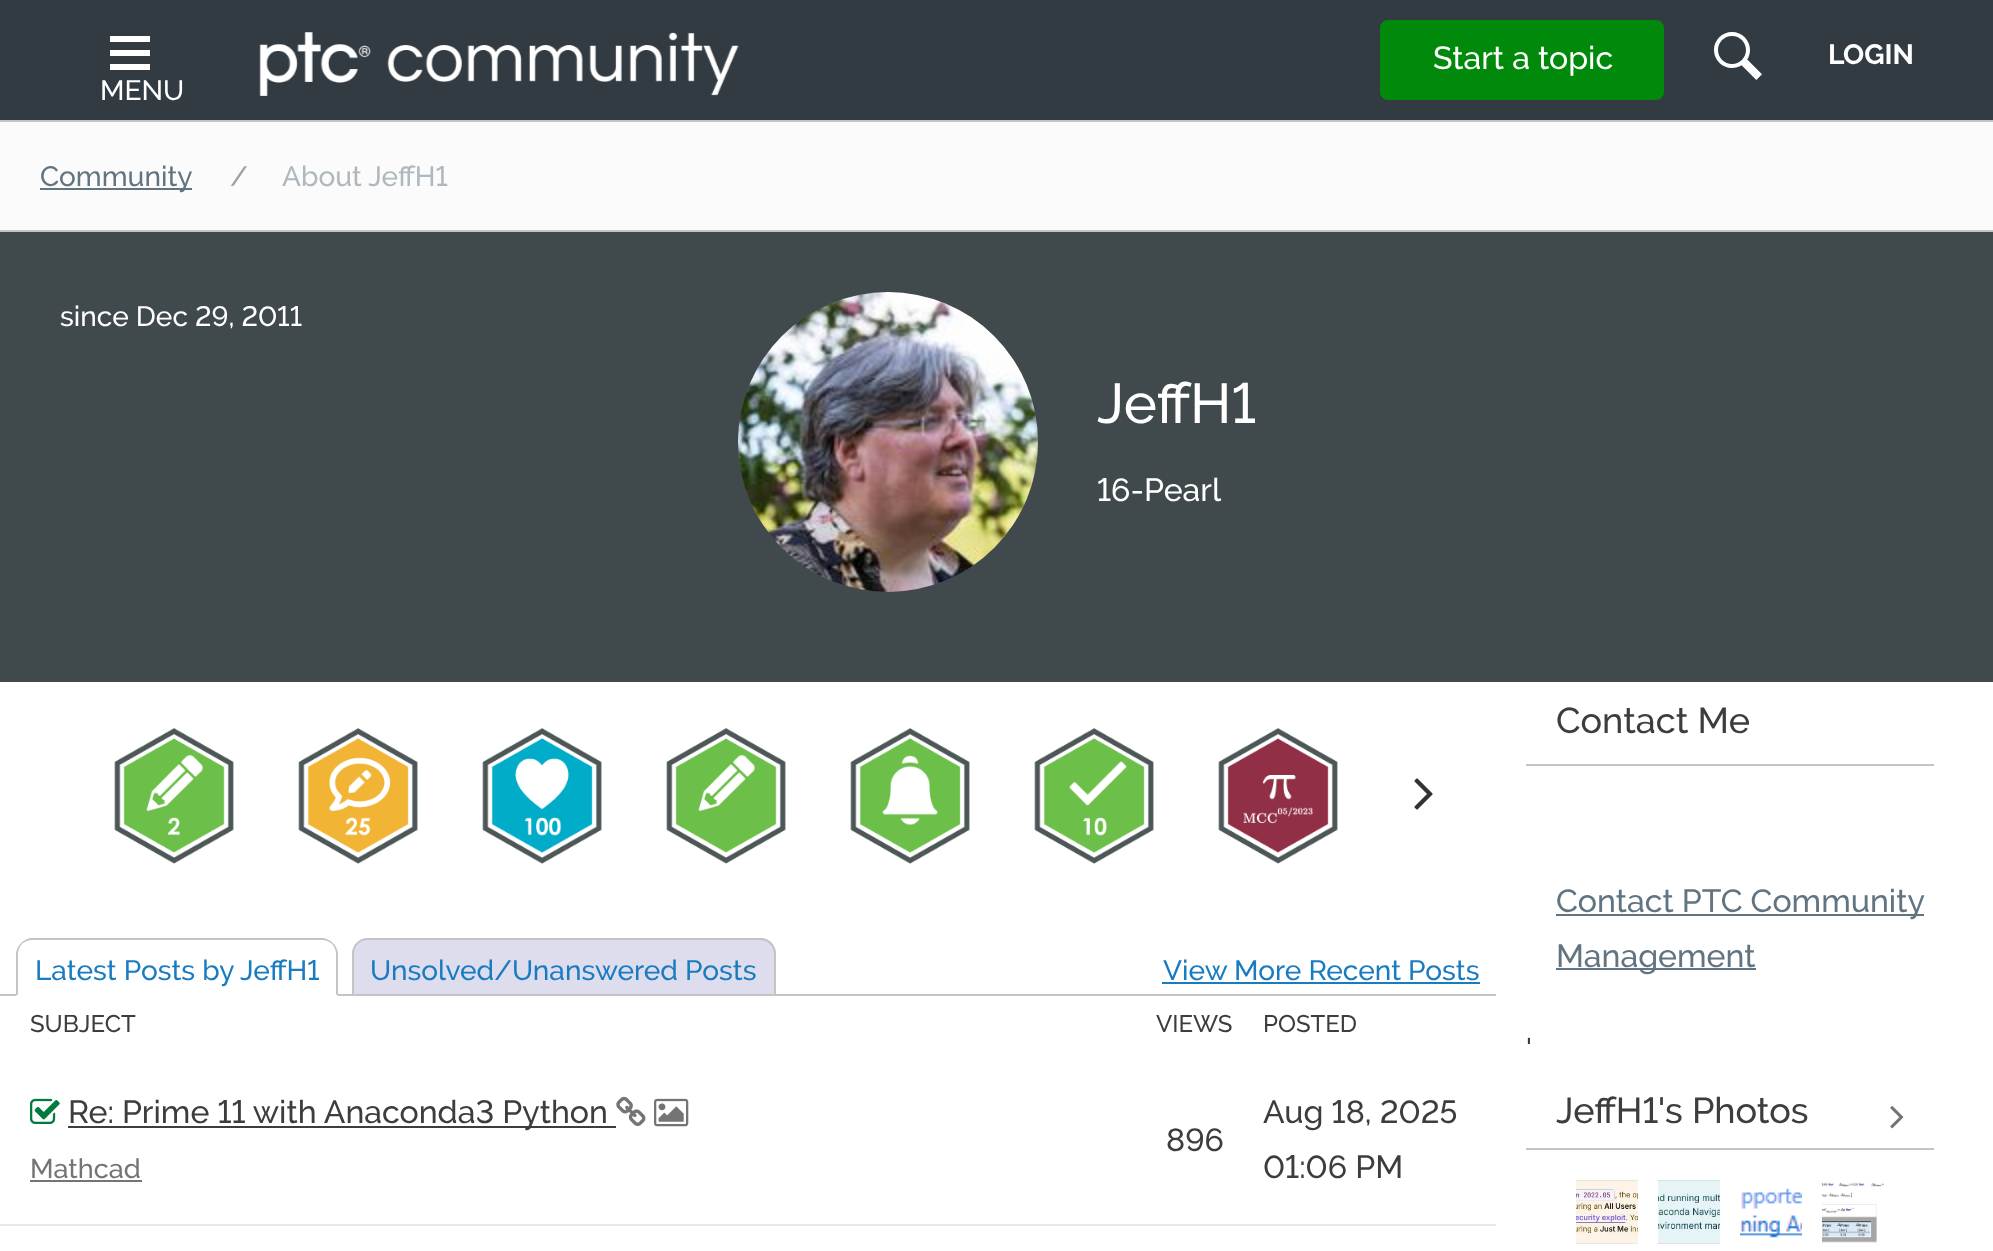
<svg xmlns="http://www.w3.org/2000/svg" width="1993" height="1251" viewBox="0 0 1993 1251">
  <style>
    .t1 { font: 500 32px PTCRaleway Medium; fill: #fff; }
    .t2 { font: bold 28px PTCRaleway; fill: #fff; }
    .t3 { font: 500 28px PTCRaleway Medium; fill: #fff; }
    .t4 { font: 500 28px PTCRaleway Medium; fill: #617480; }
    .t5 { font: 500 28px PTCRaleway Medium; fill: #a1a1a1; }
    .t6 { font: 500 28px PTCRaleway Medium; fill: #aeb8bd; }
    .t7 { font: 500 56px PTCRaleway Medium; fill: #fff; }
    .t8 { font: 500 28px PTCRaleway Medium; fill: #197bc0; }
    .t9 { font: 500 24px PTCRaleway Medium; fill: #3d3d3d; }
    .t10 { font: 500 32px PTCRaleway Medium; fill: #3d3d3d; }
    .t11 { font: 500 27px PTCRaleway Medium; fill: #747474; }
    .t12 { font: 500 36px PTCRaleway Medium; fill: #3d3d3d; }
    .t13 { font: 500 32px PTCRaleway Medium; fill: #617480; }
    .t14 { font: 500 28px PTCRaleway Medium; fill: #3d3d3d; }
  </style>
  <rect width="100%" height="100%" fill="#fff"/>
  <rect x="0" y="0" width="1993" height="120" fill="#323b42"/>
  <rect x="1381" y="21" width="282" height="78" rx="7" fill="#00890b" stroke="#00890b" stroke-width="2"/>
  <text x="1433" y="69" class="t1">Start a topic</text>
  <image x="1714" y="32" width="48" height="48" href="images/1.png"/>
  <text x="1828" y="64" class="t2">LOGIN</text>
  <path d="M110 36H150V42H110ZM110 50H150V56H110ZM110 64H150V70H110Z" fill="#fff" fill-rule="evenodd"/>
  <text x="100" y="100" class="t3">MENU</text>
  <image x="259" y="32" width="480" height="64" href="images/2.png"/>
  <rect x="0" y="122" width="1993" height="108" fill="#fbfbfb"/>
  <rect x="0" y="120" width="1993" height="2" fill="#c4c4c4"/>
  <rect x="0" y="230" width="1993" height="2" fill="#c4c4c4"/>
  <rect x="40" y="188" width="152" height="2" fill="#617480"/>
  <text x="40" y="186" class="t4">Community</text>
  <text x="230" y="186" class="t5">/</text>
  <text x="282" y="186" class="t6">About JeffH1</text>
  <rect x="0" y="232" width="1993" height="450" fill="#40494c"/>
  <text x="60" y="326" class="t3">since Dec 29, 2011</text>
  <circle cx="888" cy="442" r="150" fill="#5d5d5d"/>
  <image x="738" y="292" width="300" height="300" href="images/3.png"/>
  <text x="1097" y="423" class="t7">JeffH1</text>
  <text x="1097" y="501" class="t1">16-Pearl</text>
  <image x="114" y="728" width="120" height="136" href="images/4.png"/>
  <image x="298" y="728" width="120" height="136" href="images/5.png"/>
  <image x="482" y="728" width="120" height="136" href="images/6.png"/>
  <image x="666" y="728" width="120" height="136" href="images/7.png"/>
  <image x="850" y="728" width="120" height="136" href="images/8.png"/>
  <image x="1034" y="728" width="120" height="136" href="images/9.png"/>
  <image x="1218" y="728" width="120" height="136" href="images/10.png"/>
  <image x="1414" y="778" width="19" height="32" href="images/11.png"/>
  <rect x="0" y="994" width="1496" height="2" fill="#c4c4c4"/>
  <path d="M32 938H322C331 938 338 945 338 954V996H16V954C16 945 23 938 32 938Z" fill="#fff"/>
  <text x="35" y="980" class="t8">Latest Posts by JeffH1</text>
  <path d="M32 938C28 938 24 940 21 943L22 944C24 942 28 940 32 940H322C326 940 330 942 332 944L333 943C330 940 326 938 322 938Z" fill="#c4c4c4"/>
  <path d="M338 996V954C338 950 336 946 333 943L332 944C334 946 336 950 336 954V994Z" fill="#c4c4c4"/>
  <path d="M16 996L18 994V954C18 950 20 946 22 944L21 943C18 946 16 950 16 954Z" fill="#c4c4c4"/>
  <path d="M368 938H494V994H352V954C352 945 359 938 368 938Z" fill="#dde"/>
  <path d="M368 938H494V994H352V954C352 945 359 938 368 938ZM368 940H494V994H354V954C354 946 360 940 368 940Z" fill="#c4c4c4" fill-rule="evenodd"/>
  <rect x="494" y="940" width="184" height="54" fill="#dde"/>
  <path d="M678 938H760C769 938 776 945 776 954V994H678Z" fill="#dde"/>
  <path d="M678 938H760C769 938 776 945 776 954V994H678ZM678 940H760C768 940 774 946 774 954V994H678Z" fill="#c4c4c4" fill-rule="evenodd"/>
  <text x="370" y="980" class="t8">Unsolved/Unanswered Posts</text>
  <rect x="494" y="938" width="184" height="2" fill="#c4c4c4"/>
  <text x="1163" y="980" class="t8">View More Recent Posts</text>
  <rect x="1162" y="982" width="318" height="2" fill="#197bc0"/>
  <text x="30" y="1032" class="t9">SUBJECT</text>
  <text x="1156" y="1032" class="t9">VIEWS</text>
  <text x="1263" y="1032" class="t9">POSTED</text>
  <image x="30" y="1098" width="30" height="26" href="images/12.png"/>
  <rect x="68" y="1126" width="548" height="2" fill="#3d3d3d"/>
  <text x="68" y="1123" class="t10">Re: Prime 11 with Anaconda3 Python</text>
  <image x="616" y="1096" width="30" height="30" href="images/13.png"/>
  <image x="654" y="1098" width="35" height="29" href="images/14.png"/>
  <text x="30" y="1178" class="t11">Mathcad</text>
  <rect x="30" y="1180" width="112" height="2" fill="#747474"/>
  <text x="1166" y="1151" class="t10">896</text>
  <text x="1263" y="1123" class="t10">Aug 18, 2025</text>
  <text x="1263" y="1178" class="t10">01:06 PM</text>
  <rect x="0" y="1224" width="1496" height="2" fill="#e8e8e8"/>
  <rect x="1526" y="764" width="408" height="2" fill="#c4c4c4"/>
  <text x="1556" y="733" class="t12">Contact Me</text>
  <rect x="1556" y="914" width="368" height="2" fill="#617480"/>
  <text x="1556" y="912" class="t13">Contact PTC Community</text>
  <rect x="1556" y="968" width="200" height="2" fill="#617480"/>
  <text x="1556" y="967" class="t13">Management</text>
  <text x="1526" y="1058" class="t14">'</text>
  <rect x="1526" y="1148" width="408" height="2" fill="#c4c4c4"/>
  <text x="1556" y="1123" class="t12">JeffH1's Photos</text>
  <image x="1890" y="1106" width="14" height="23" href="images/15.png"/>
  <image x="1576" y="1180" width="62" height="64" href="images/16.png"/>
  <image x="1658" y="1180" width="62" height="64" href="images/17.png"/>
  <image x="1740" y="1188" width="62" height="50" href="images/18.png"/>
  <image x="1822" y="1182" width="62" height="61" href="images/19.png"/>
</svg>
